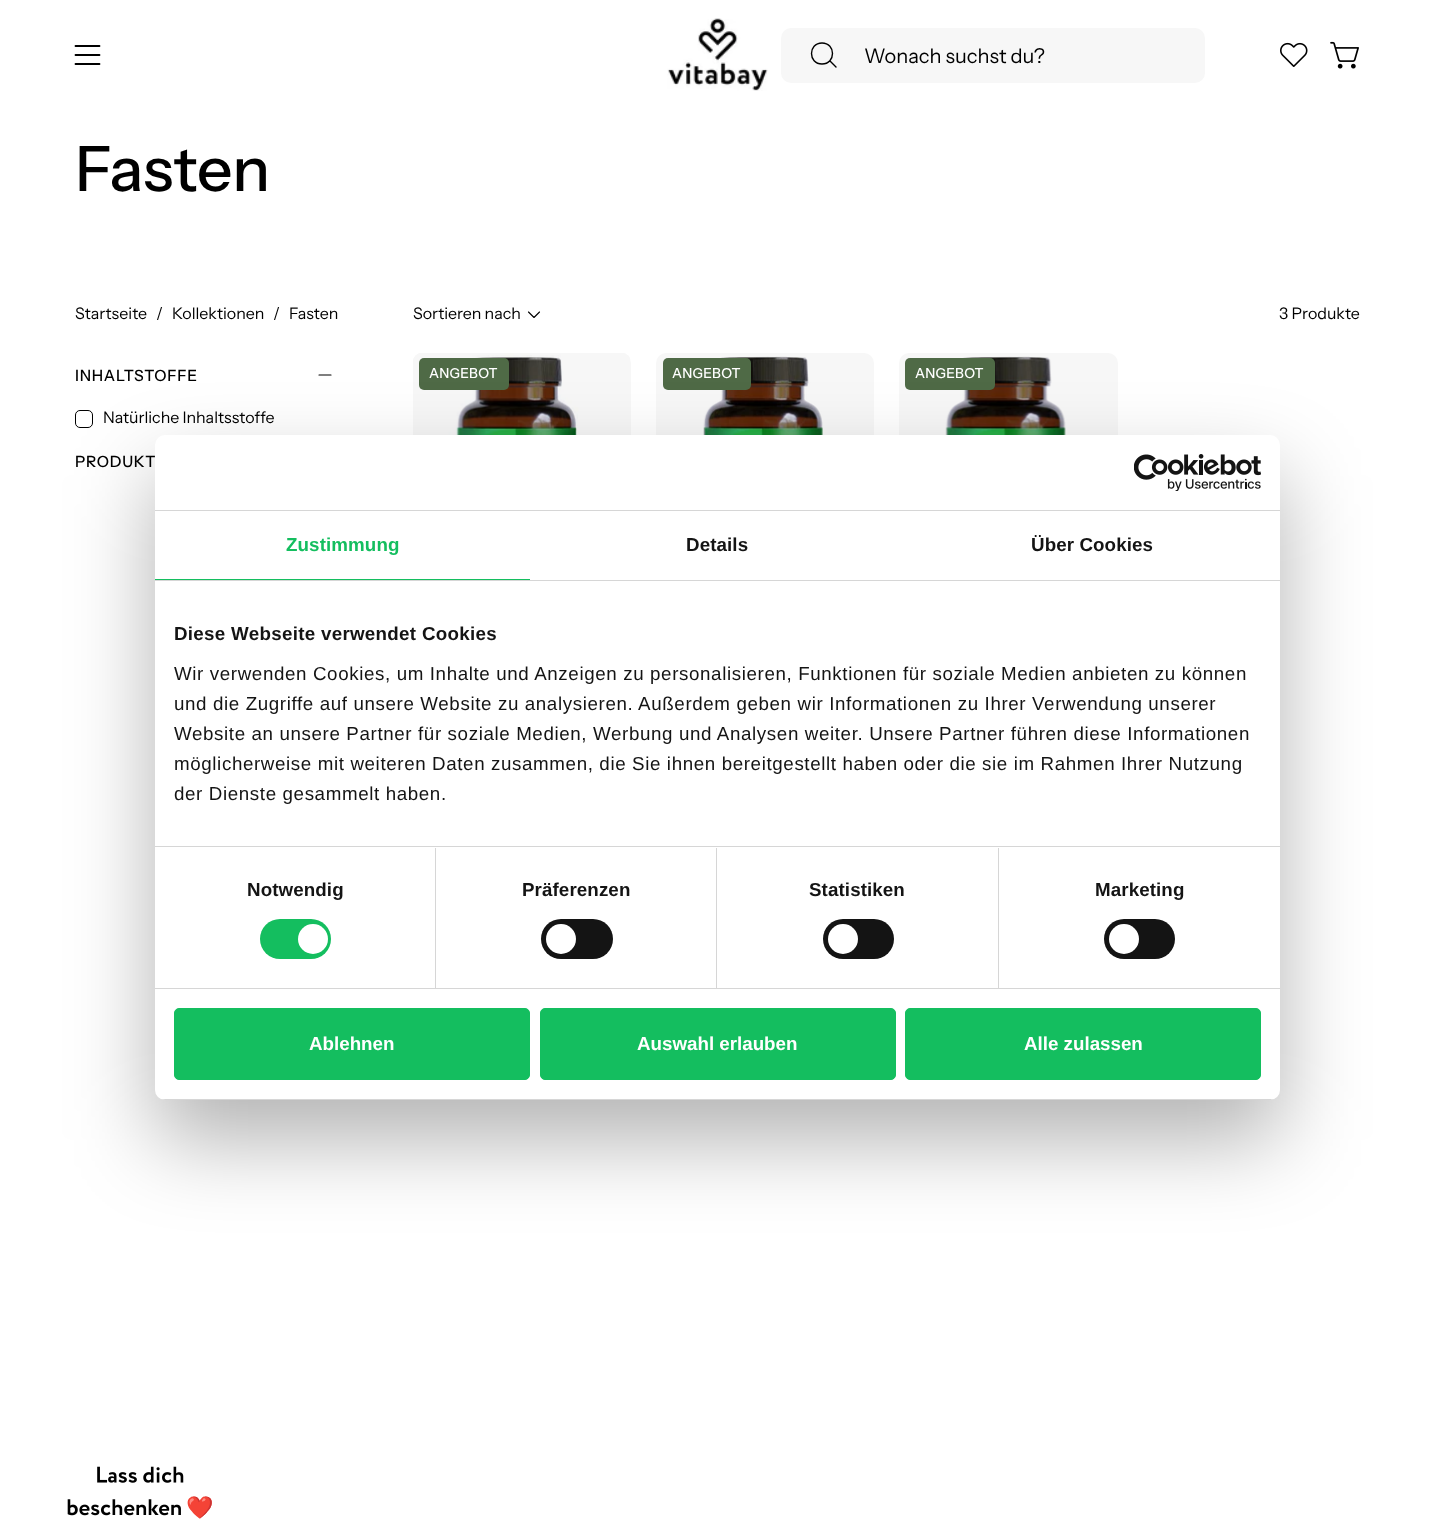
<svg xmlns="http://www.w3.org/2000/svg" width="1434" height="1534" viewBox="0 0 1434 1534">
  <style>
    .t1 { font: 20px Instrument Sans; fill: #000; }
    .t2 { font: 500 62.5px Instrument Sans; fill: #000; }
    .t3 { font: 16px Instrument Sans; fill: #000; }
    .t4 { font: 500 15.5px Instrument Sans; letter-spacing: 0.75px; fill: #000; }
    .t5 { font: 500 13.75px Instrument Sans; letter-spacing: 0.25px; fill: #fff; }
    .t6 { font: bold 18.75px Liberation Sans; letter-spacing: 0.1px; fill: #14be5f; }
    .t7 { font: bold 18.75px Liberation Sans; letter-spacing: 0.1px; fill: #141414; }
    .t8 { font: bold 18.75px Liberation Sans; letter-spacing: 0.3px; fill: #141414; }
    .t9 { font: 18.75px Liberation Sans; letter-spacing: 0.62px; fill: #141414; }
    .t10 { font: bold 18.75px Liberation Sans; fill: #fff; }
    .t11 { font: bold 22px Noto Color Emoji; fill: #000; }
  </style>
  <defs>
    <clipPath id="clip1"><rect x="155" y="435" width="1125" height="665" rx="10"/></clipPath>
  </defs>
  <rect width="100%" height="100%" fill="#fff"/>
  <path d="M75.5 55H99.5M75.5 46H99.5M75.5 64H99.5" fill="none" stroke="#000" stroke-width="1.8" stroke-linecap="round" stroke-linejoin="round"/>
  <image x="667" y="18" width="101" height="73" href="images/1.png"/>
  <rect x="781" y="28" width="424" height="55" rx="10" fill="#f7f7f7"/>
  <path d="M822 64C836 64 836 43 822 43C808 43 808 64 822 64ZM830 61L836 67" fill="none" stroke="#000" stroke-width="1.4" stroke-linecap="round" stroke-linejoin="round"/>
  <text x="864" y="63" class="t1">Wonach suchst du?</text>
  <image x="1280" y="42" width="28" height="25" href="images/2.png"/>
  <image x="1330" y="41" width="29" height="28" href="images/3.png"/>
  <text x="75" y="191" class="t2">Fasten</text>
  <text x="75" y="319" class="t3">Startseite</text>
  <text x="156" y="319" class="t3">/</text>
  <text x="172" y="319" class="t3">Kollektionen</text>
  <text x="273" y="319" class="t3">/</text>
  <text x="289" y="319" class="t3">Fasten</text>
  <text x="413" y="319" class="t3">Sortieren nach</text>
  <path d="M539.5 312L534 317.5L528.5 312" fill="none" stroke="#000" stroke-width="1.1" stroke-linecap="round" stroke-linejoin="round"/>
  <text x="1279" y="319" class="t3">3 Produkte</text>
  <text x="75" y="381" class="t4">INHALTSTOFFE</text>
  <path d="M331 375H319" fill="none" stroke="#000" stroke-width="1.1" stroke-linecap="round" stroke-linejoin="round"/>
  <rect x="75.5" y="410.5" width="17" height="17" rx="4.5" fill="none" stroke="#000"/>
  <text x="103" y="423" class="t3">Natürliche Inhaltsstoffe</text>
  <text x="75" y="467" class="t4">PRODUKT</text>
  <rect x="413" y="353" width="218" height="238" rx="10" fill="#f7f7f7"/>
  <image x="413" y="353" width="217" height="82" href="images/4.png"/>
  <rect x="419" y="358" width="90" height="32" rx="5" fill="#4f6a46"/>
  <text x="429" y="378" class="t5">ANGEBOT</text>
  <rect x="656" y="353" width="218" height="238" rx="10" fill="#f7f7f7"/>
  <image x="703" y="356" width="120" height="79" href="images/5.png"/>
  <rect x="663" y="358" width="88" height="32" rx="5" fill="#4f6a46"/>
  <text x="672" y="378" class="t5">ANGEBOT</text>
  <rect x="899" y="353" width="219" height="238" rx="10" fill="#f7f7f7"/>
  <image x="945" y="356" width="121" height="79" href="images/6.png"/>
  <rect x="905" y="358" width="90" height="32" rx="5" fill="#4f6a46"/>
  <text x="915" y="378" class="t5">ANGEBOT</text>
  <rect x="155" y="475" width="1125" height="665" rx="10" fill="#0000004d" filter="blur(42.5px)"/>
  <rect x="155" y="435" width="1125" height="665" rx="10" fill="#fff"/>
  <rect x="155" y="510" width="1125" height="1" fill="#d6d6d6"/>
  <image x="1134" y="454" width="127" height="37" href="images/7.png"/>
  <rect x="155" y="580" width="1125" height="1" fill="#d6d6d6"/>
  <rect x="155" y="579" width="375" height="1" fill="#14be5f"/>
  <text x="286" y="551" class="t6">Zustimmung</text>
  <text x="686" y="551" class="t7">Details</text>
  <text x="1031" y="551" class="t7">Über Cookies</text>
  <rect x="155" y="846" width="1125" height="1" fill="#d6d6d6"/>
  <text x="174" y="640" class="t8">Diese Webseite verwendet Cookies</text>
  <text x="174" y="680" class="t9">Wir verwenden Cookies, um Inhalte und Anzeigen zu personalisieren, Funktionen für soziale Medien anbieten zu können</text>
  <text x="174" y="710" class="t9">und die Zugriffe auf unsere Website zu analysieren. Außerdem geben wir Informationen zu Ihrer Verwendung unserer</text>
  <text x="174" y="740" class="t9">Website an unsere Partner für soziale Medien, Werbung und Analysen weiter. Unsere Partner führen diese Informationen</text>
  <text x="174" y="770" class="t9">möglicherweise mit weiteren Daten zusammen, die Sie ihnen bereitgestellt haben oder die sie im Rahmen Ihrer Nutzung</text>
  <text x="174" y="800" class="t9">der Dienste gesammelt haben.</text>
  <rect x="155" y="988" width="1125" height="1" fill="#d6d6d6"/>
  <rect x="435" y="848" width="1" height="140" fill="#d6d6d6"/>
  <text x="247" y="896" class="t7">Notwendig</text>
  <rect x="260" y="919" width="71" height="40" rx="20" fill="#14be5f"/>
  <circle cx="313" cy="939" r="15" fill="#fff"/>
  <rect x="716" y="848" width="1" height="140" fill="#d6d6d6"/>
  <text x="522" y="896" class="t7">Präferenzen</text>
  <rect x="541" y="919" width="72" height="40" rx="20" fill="#141414"/>
  <circle cx="561" cy="939" r="15" fill="#fff"/>
  <rect x="998" y="848" width="1" height="140" fill="#d6d6d6"/>
  <text x="809" y="896" class="t7">Statistiken</text>
  <rect x="823" y="919" width="71" height="40" rx="20" fill="#141414"/>
  <circle cx="843" cy="939" r="15" fill="#fff"/>
  <text x="1095" y="896" class="t7">Marketing</text>
  <rect x="1104" y="919" width="71" height="40" rx="20" fill="#141414"/>
  <circle cx="1124" cy="939" r="15" fill="#fff"/>
  <g clip-path="url(#clip1)">
    <rect x="155" y="1099" width="1125" height="1" fill="#d6d6d6"/>
  </g>
  <rect x="174.5" y="1008.5" width="355" height="71" rx="4.5" fill="#14be5f" stroke="#14be5f"/>
  <text x="309" y="1050" class="t10">Ablehnen</text>
  <rect x="540.5" y="1008.5" width="355" height="71" rx="4.5" fill="#14be5f" stroke="#14be5f"/>
  <text x="637" y="1050" class="t10">Auswahl erlauben</text>
  <rect x="905.5" y="1008.5" width="355" height="71" rx="4.5" fill="#14be5f" stroke="#14be5f"/>
  <text x="1024" y="1050" class="t10">Alle zulassen</text>
  <image x="97" y="1466" width="87" height="17" href="images/8.png"/>
  <image x="67" y="1499" width="114" height="17" href="images/9.png"/>
  <text x="186" y="1515" class="t11">❤️</text>
</svg>
